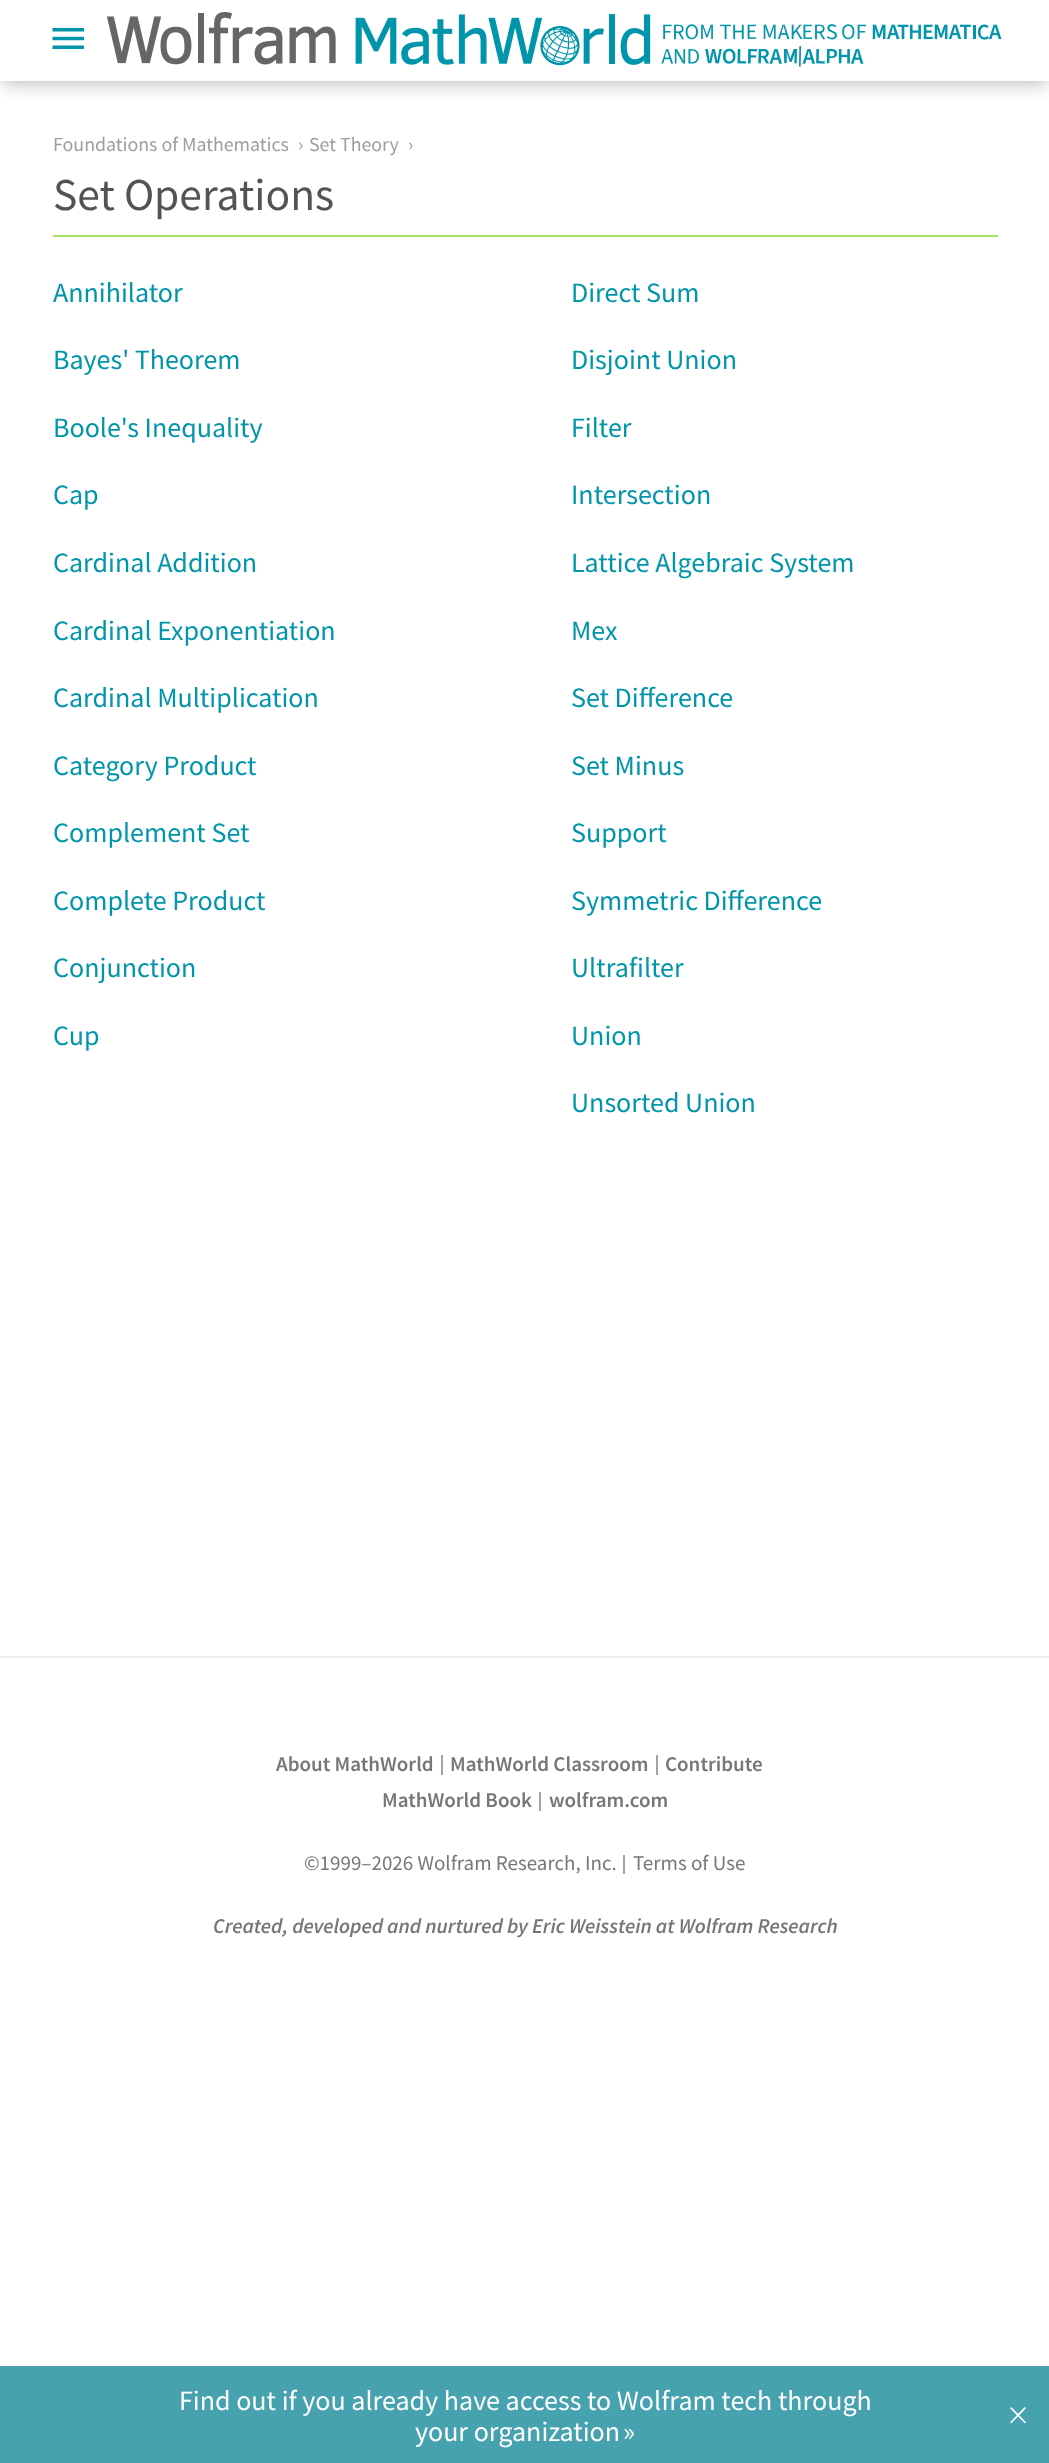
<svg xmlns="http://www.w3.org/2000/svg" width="1049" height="2463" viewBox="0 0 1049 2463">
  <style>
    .t1 { font: 19.9px Source Sans Pro; fill: #9d9d9d; }
    .t2 { font: 45.5px Source Sans Pro; fill: #535353; }
    .t3 { font: 28px Source Sans Pro; fill: #0095aa; }
    .t4 { font: 600 21px Source Sans Pro; fill: #777; }
    .t5 { font: 21px Source Sans Pro; fill: #777; }
    .t6 { font: italic 600 21px Source Sans Pro; fill: #777; }
    .t7 { font: 28px Source Sans Pro; fill: #fff; }
    .t8 { font: 300 42px Source Sans Pro; fill: #fff; }
  </style>
  <rect width="100%" height="100%" fill="#fff"/>
  <rect x="2" y="7" width="1046" height="77" fill="#00000040" filter="blur(9px)"/>
  <rect x="0" y="0" width="1049" height="81" fill="#fff"/>
  <image x="52" y="28" width="32" height="21" href="images/1.png"/>
  <image x="106" y="12" width="896" height="55" href="images/2.png"/>
  <text x="53" y="151" class="t1">Foundations of Mathematics</text>
  <text x="298" y="151" class="t1">›</text>
  <text x="309" y="151" class="t1">Set Theory</text>
  <text x="408" y="151" class="t1">›</text>
  <text x="53" y="210" class="t2">Set Operations</text>
  <rect x="53" y="235" width="945" height="2" fill="#a9e163"/>
  <text x="53" y="302" class="t3">Annihilator</text>
  <text x="571" y="302" class="t3">Direct Sum</text>
  <text x="53" y="369" class="t3">Bayes' Theorem</text>
  <text x="571" y="369" class="t3">Disjoint Union</text>
  <text x="53" y="437" class="t3">Boole's Inequality</text>
  <text x="571" y="437" class="t3">Filter</text>
  <text x="53" y="504" class="t3">Cap</text>
  <text x="571" y="504" class="t3">Intersection</text>
  <text x="53" y="572" class="t3">Cardinal Addition</text>
  <text x="571" y="572" class="t3">Lattice Algebraic System</text>
  <text x="53" y="640" class="t3">Cardinal Exponentiation</text>
  <text x="571" y="640" class="t3">Mex</text>
  <text x="53" y="707" class="t3">Cardinal Multiplication</text>
  <text x="571" y="707" class="t3">Set Difference</text>
  <text x="53" y="775" class="t3">Category Product</text>
  <text x="571" y="775" class="t3">Set Minus</text>
  <text x="53" y="842" class="t3">Complement Set</text>
  <text x="571" y="842" class="t3">Support</text>
  <text x="53" y="910" class="t3">Complete Product</text>
  <text x="571" y="910" class="t3">Symmetric Difference</text>
  <text x="53" y="977" class="t3">Conjunction</text>
  <text x="571" y="977" class="t3">Ultrafilter</text>
  <text x="53" y="1045" class="t3">Cup</text>
  <text x="571" y="1045" class="t3">Union</text>
  <text x="571" y="1112" class="t3">Unsorted Union</text>
  <rect x="0" y="1656" width="1049" height="2" fill="#eee"/>
  <text x="276" y="1771" class="t4">About MathWorld</text>
  <rect x="441" y="1755" width="2" height="20" fill="#a3a3a3"/>
  <text x="450" y="1771" class="t4">MathWorld Classroom</text>
  <rect x="656" y="1755" width="2" height="20" fill="#a3a3a3"/>
  <text x="665" y="1771" class="t4">Contribute</text>
  <text x="382" y="1807" class="t4">MathWorld Book</text>
  <rect x="539" y="1792" width="2" height="19" fill="#a3a3a3"/>
  <text x="549" y="1807" class="t4">wolfram.com</text>
  <text x="304" y="1870" class="t5">©1999–2026 Wolfram Research, Inc.</text>
  <rect x="623" y="1855" width="2" height="19" fill="#a3a3a3"/>
  <text x="633" y="1870" class="t5">Terms of Use</text>
  <text x="213" y="1933" class="t6">Created, developed and nurtured by Eric Weisstein at Wolfram Research</text>
  <rect x="0" y="2366" width="1049" height="97" fill="#47a2af"/>
  <text x="179" y="2410" class="t7">Find out if you already have access to Wolfram tech through</text>
  <text x="415" y="2441" class="t7">your organization</text>
  <text x="623" y="2441" class="t7">»</text>
  <text x="1008" y="2429" class="t8">×</text>
</svg>
